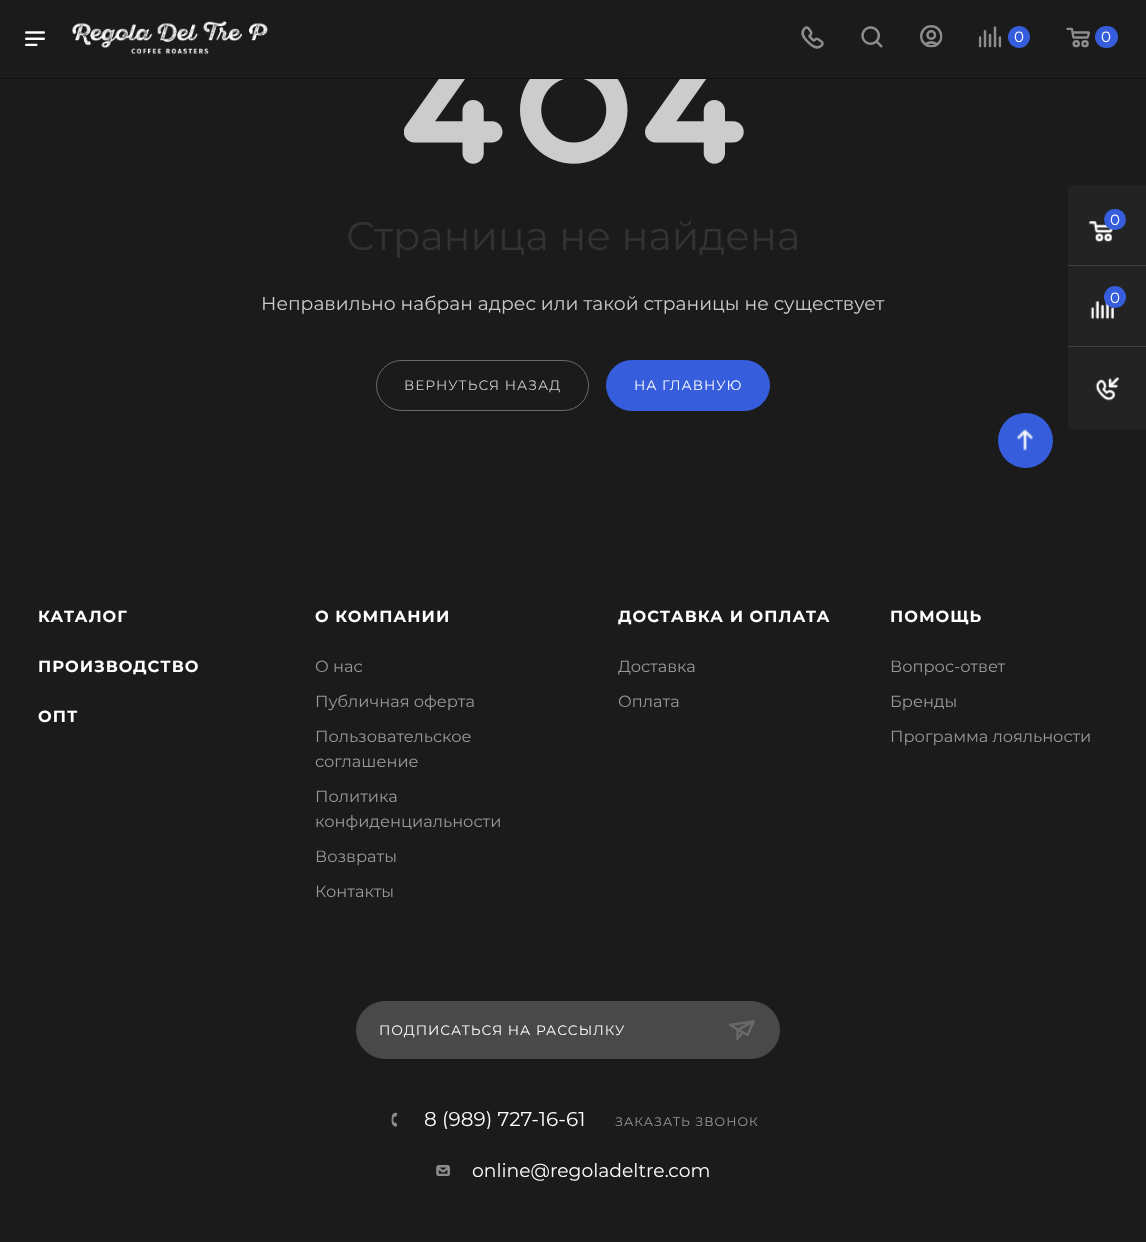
<svg xmlns="http://www.w3.org/2000/svg" width="1146" height="1242" viewBox="0 0 1146 1242">
  <style>
    .t1 { font: 15px Montserrat; fill: #fff; }
    .t2 { font: 40px Montserrat; fill: #333; }
    .t3 { font: 18.75px Montserrat; fill: #ccc; }
    .t4 { font: 13.75px Montserrat; letter-spacing: 1px; fill: #ccc; }
    .t5 { font: 13.75px Montserrat; letter-spacing: 1px; fill: #fff; }
    .t6 { font: bold 16.25px Montserrat; letter-spacing: 1px; fill: #fff; }
    .t7 { font: 16.25px Montserrat; fill: #999; }
    .t8 { font: 20px Montserrat; fill: #fff; }
    .t9 { font: 12.5px Montserrat; letter-spacing: 1px; fill: #999; }
    .t10 { font: 18.75px Montserrat; fill: #fff; }
  </style>
  <defs>
    <clipPath id="clip1"><rect x="388" y="1109" width="213" height="20"/></clipPath>
  </defs>
  <rect width="100%" height="100%" fill="#1b1b1b"/>
  <rect x="0" y="78" width="1146" height="1" fill="#121212"/>
  <image x="25" y="31" width="20" height="15" href="images/1.png"/>
  <image x="72" y="21" width="196" height="34" href="images/2.png"/>
  <image x="801" y="26" width="23" height="23" href="images/3.png"/>
  <image x="861" y="26" width="22" height="22" href="images/4.png"/>
  <image x="920" y="25" width="23" height="23" href="images/5.png"/>
  <image x="978" y="26" width="24" height="22" href="images/6.png"/>
  <circle cx="1019" cy="37" r="11" fill="#365edc"/>
  <text x="1014" y="42" class="t1">0</text>
  <image x="1066" y="27" width="24" height="21" href="images/7.png"/>
  <rect x="1095" y="26" width="23" height="22" rx="11" fill="#365edc"/>
  <text x="1101" y="42" class="t1">0</text>
  <image x="404" y="79" width="340" height="85" href="images/8.png"/>
  <text x="346" y="250" class="t2">Страница не найдена</text>
  <text x="261" y="310" class="t3">Неправильно набран адрес или такой страницы не существует</text>
  <rect x="376.5" y="360.5" width="212" height="50" rx="25" fill="none" stroke="#6b6b6b"/>
  <text x="404" y="390" class="t4">ВЕРНУТЬСЯ НАЗАД</text>
  <rect x="606.5" y="360.5" width="163" height="50" rx="25" fill="#365edc" stroke="#365edc"/>
  <text x="634" y="390" class="t5">НА ГЛАВНУЮ</text>
  <path d="M1073 185H1146V429H1073C1070 429 1068 427 1068 424V190C1068 187 1070 185 1073 185Z" fill="#232323"/>
  <rect x="1068" y="265" width="78" height="1" fill="#414141"/>
  <image x="1088" y="221" width="25" height="21" href="images/9.png"/>
  <rect x="1104" y="209" width="22" height="21" rx="10.5" fill="#365edc"/>
  <text x="1110" y="225" class="t1">0</text>
  <rect x="1068" y="346" width="78" height="1" fill="#414141"/>
  <image x="1090" y="301" width="24" height="19" href="images/10.png"/>
  <circle cx="1115" cy="297" r="11" fill="#365edc"/>
  <text x="1110" y="303" class="t1">0</text>
  <image x="1095" y="377" width="24" height="24" href="images/11.png"/>
  <circle cx="1025.5" cy="440.5" r="27.5" fill="#365edc"/>
  <image x="1017" y="429" width="16" height="22" href="images/12.png"/>
  <text x="38" y="622" class="t6">КАТАЛОГ</text>
  <text x="38" y="672" class="t6">ПРОИЗВОДСТВО</text>
  <text x="38" y="722" class="t6">ОПТ</text>
  <text x="315" y="622" class="t6">О КОМПАНИИ</text>
  <text x="315" y="672" class="t7">О нас</text>
  <text x="315" y="707" class="t7">Публичная оферта</text>
  <text x="315" y="742" class="t7">Пользовательское</text>
  <text x="315" y="767" class="t7">соглашение</text>
  <text x="315" y="802" class="t7">Политика</text>
  <text x="315" y="827" class="t7">конфиденциальности</text>
  <text x="315" y="862" class="t7">Возвраты</text>
  <text x="315" y="897" class="t7">Контакты</text>
  <text x="618" y="622" class="t6">ДОСТАВКА И ОПЛАТА</text>
  <text x="618" y="672" class="t7">Доставка</text>
  <text x="618" y="707" class="t7">Оплата</text>
  <text x="890" y="622" class="t6">ПОМОЩЬ</text>
  <text x="890" y="672" class="t7">Вопрос-ответ</text>
  <text x="890" y="707" class="t7">Бренды</text>
  <text x="890" y="742" class="t7">Программа лояльности</text>
  <rect x="356.5" y="1001.5" width="423" height="57" rx="28.5" fill="#494949" stroke="#494949"/>
  <text x="379" y="1035" class="t5">ПОДПИСАТЬСЯ НА РАССЫЛКУ</text>
  <image x="729" y="1020" width="26" height="20" href="images/13.png"/>
  <image x="391" y="1112" width="7" height="15" href="images/14.png"/>
  <g clip-path="url(#clip1)">
    <text x="424" y="1126" class="t8">8 (989) 727-16-61</text>
  </g>
  <text x="615" y="1126" class="t9">ЗАКАЗАТЬ ЗВОНОК</text>
  <image x="436" y="1165" width="14" height="11" href="images/15.png"/>
  <text x="472" y="1177" class="t10">online@regoladeltre.com</text>
</svg>
